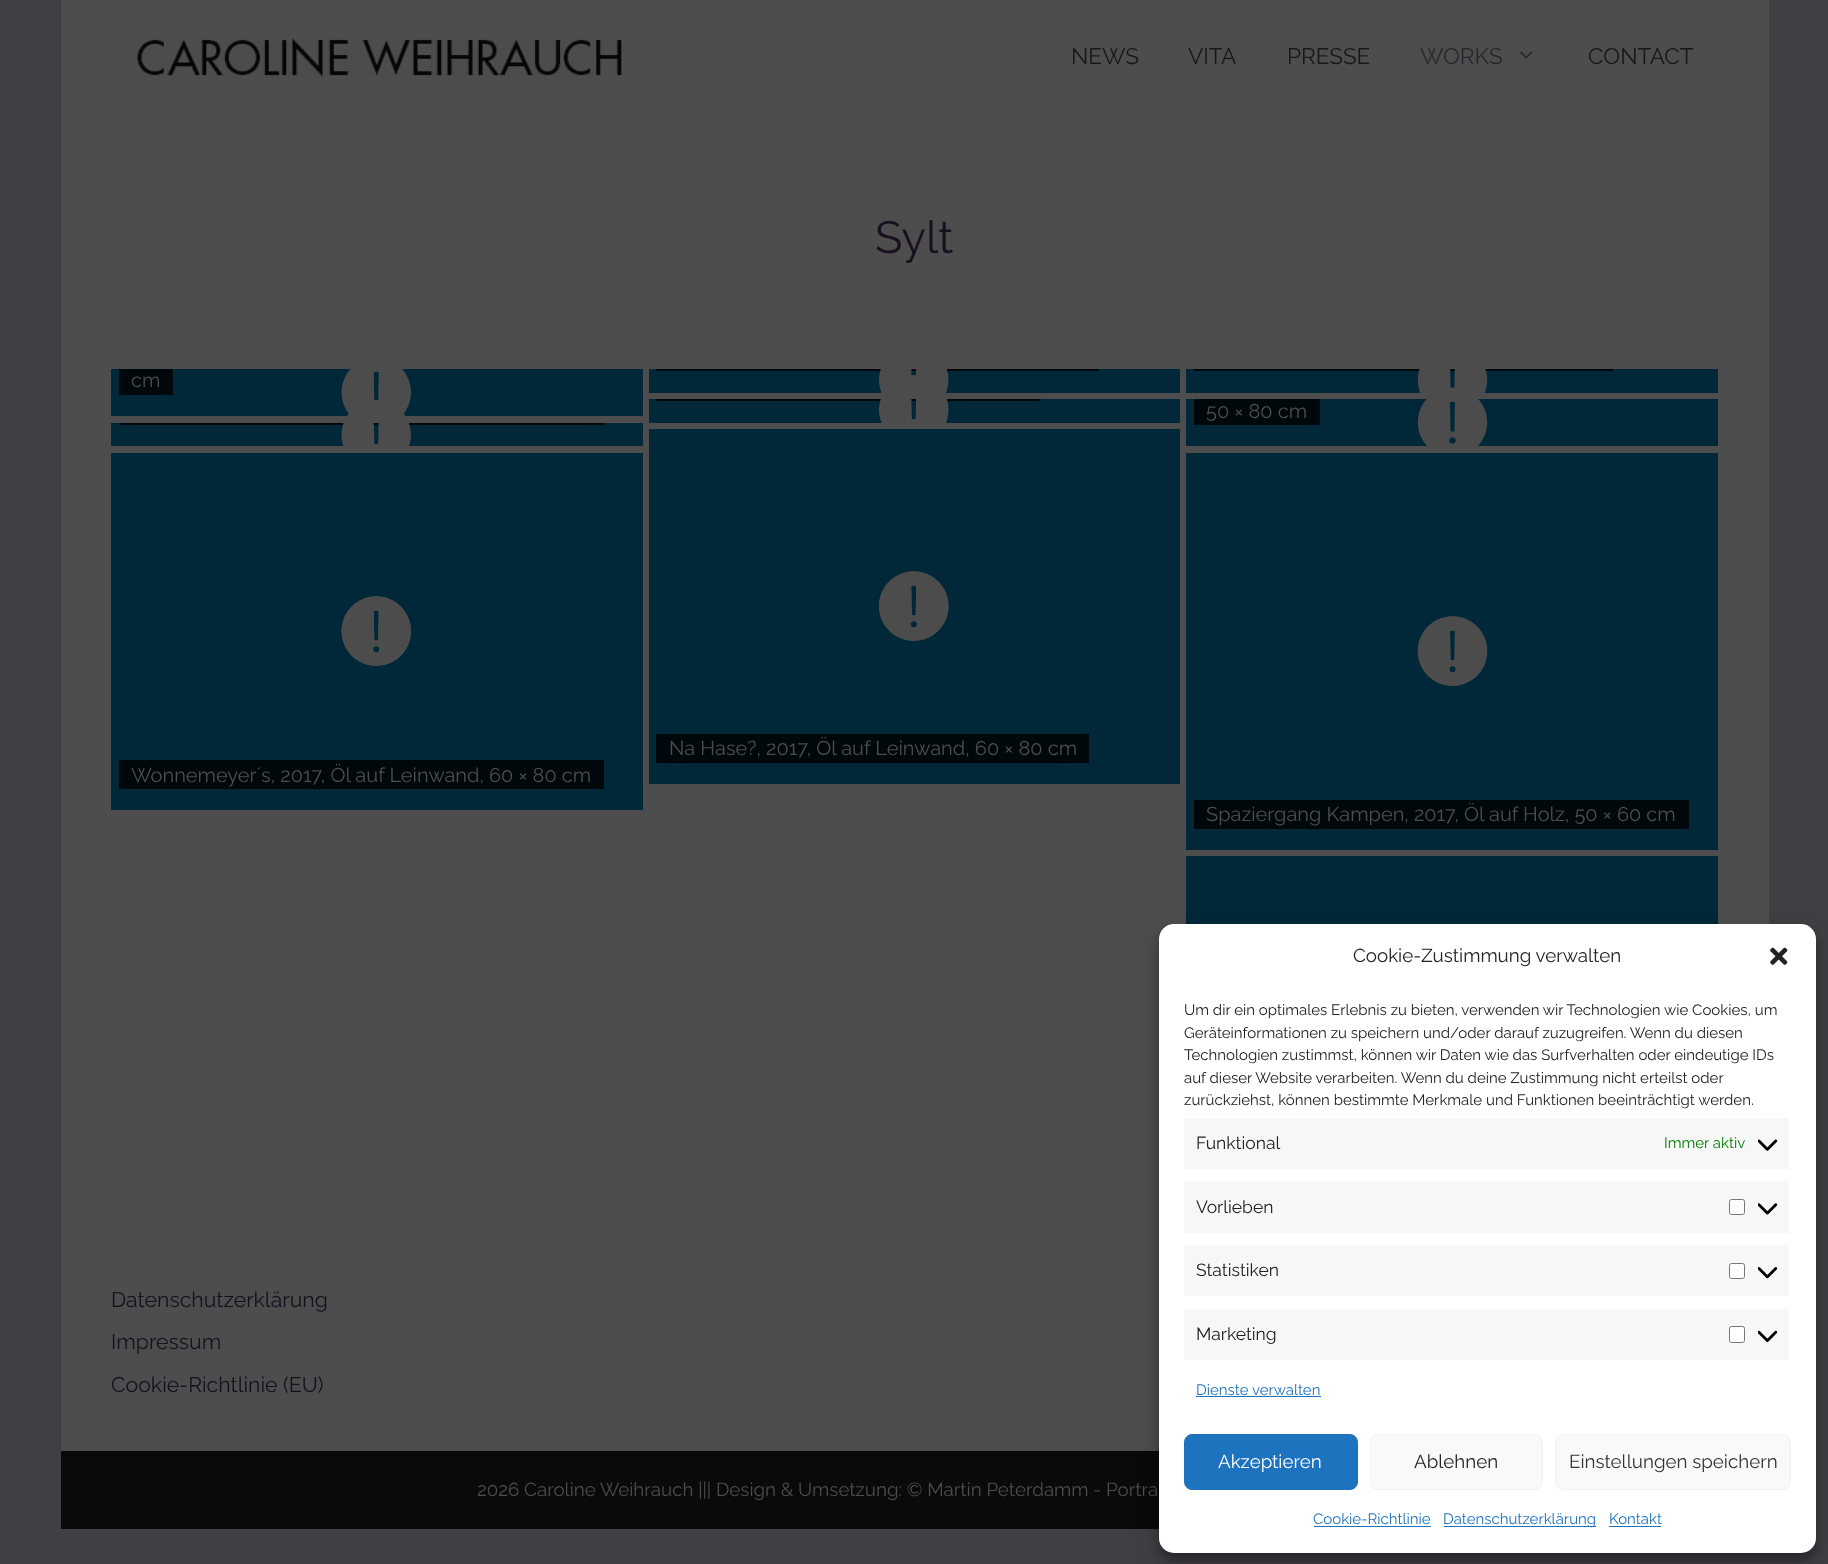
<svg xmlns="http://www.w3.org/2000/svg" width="1828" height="1564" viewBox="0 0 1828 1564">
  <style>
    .t1 { font: 22.5px Raleway; fill: #181818; }
    .t2 { font: 22.5px Raleway; fill: #25292d; }
    .t3 { font: 45px Raleway; fill: #18101f; }
    .t4 { font: 20px Raleway; fill: #4d4d4d; }
    .t5 { font: 21.25px Raleway; fill: #18101f; }
    .t6 { font: 18.75px Raleway; fill: #4d4d4d; }
    .t7 { font: 18.75px Raleway; fill: #222; }
    .t8 { font: 15px Raleway; fill: #222; }
    .t9 { font: 17.5px Raleway; fill: #222; }
    .t10 { font: 15px Raleway; fill: #008000; }
    .t11 { font: 15px Raleway; fill: #1e73be; }
    .t12 { font: 18.75px Raleway; fill: #fff; }
    .t13 { font: 18.75px Raleway; fill: #333; }
  </style>
  <defs>
    <clipPath id="clip1"><rect x="111" y="369" width="532" height="47"/></clipPath>
    <clipPath id="clip2"><rect x="111" y="423" width="532" height="23"/></clipPath>
    <clipPath id="clip3"><rect x="1186" y="399" width="532" height="47"/></clipPath>
  </defs>
  <rect width="100%" height="100%" fill="#413e44"/>
  <rect x="61" y="0" width="1708" height="1234" fill="#4d4d4d"/>
  <image x="137" y="38" width="485" height="39" href="images/1.png"/>
  <text x="1071" y="64" class="t1">NEWS</text>
  <text x="1188" y="64" class="t1">VITA</text>
  <text x="1287" y="64" class="t1">PRESSE</text>
  <text x="1420" y="64" class="t2">WORKS</text>
  <image x="1520" y="51" width="13" height="8" href="images/2.png"/>
  <text x="1588" y="64" class="t1">CONTACT</text>
  <text x="875" y="253" class="t3">Sylt</text>
  <rect x="111" y="369" width="532" height="47" fill="#002838"/>
  <g clip-path="url(#clip1)">
    <path d="M119 366V395H131V366H148ZM144 366H160V395H173V366Z" fill="#00080b"/>
  </g>
  <rect x="131" y="369" width="29" height="26" fill="#00080b"/>
  <text x="131" y="387" class="t4">cm</text>
  <image x="341" y="369" width="70" height="47" href="images/3.png"/>
  <rect x="111" y="423" width="532" height="23" fill="#002838"/>
  <g clip-path="url(#clip2)">
    <path d="M144 396H592V425H605V396Z" fill="#00080b"/>
  </g>
  <rect x="131" y="423" width="462" height="2" fill="#000000cc"/>
  <image x="341" y="400" width="70" height="46" href="images/4.png"/>
  <g clip-path="url(#clip2)">
    <path d="M119 396V425H131V396H580Z" fill="#00080b"/>
  </g>
  <rect x="111" y="453" width="532" height="357" fill="#002838"/>
  <image x="341" y="596" width="70" height="70" href="images/5.png"/>
  <image x="341" y="596" width="70" height="70" href="images/6.png"/>
  <path d="M119 760V789H579H131V760Z" fill="#00080b"/>
  <rect x="131" y="760" width="460" height="29" fill="#00080b"/>
  <text x="131" y="782" class="t4">Wonnemeyer´s, 2017, Öl auf Leinwand, 60 × 80 cm</text>
  <path d="M144 789H604V760H591V789Z" fill="#00080b"/>
  <rect x="649" y="369" width="531" height="24" fill="#002838"/>
  <rect x="656" y="369" width="13" height="2" fill="#00080b"/>
  <rect x="669" y="369" width="430" height="2" fill="#00080b"/>
  <image x="879" y="369" width="70" height="24" href="images/7.png"/>
  <rect x="649" y="399" width="531" height="24" fill="#002838"/>
  <rect x="669" y="399" width="372" height="2" fill="#00080b"/>
  <image x="879" y="375" width="70" height="48" href="images/8.png"/>
  <rect x="656" y="399" width="13" height="2" fill="#00080b"/>
  <rect x="649" y="429" width="531" height="355" fill="#002838"/>
  <image x="879" y="571" width="70" height="70" href="images/9.png"/>
  <image x="879" y="571" width="70" height="70" href="images/10.png"/>
  <path d="M656 734V763H1064V762H669V734Z" fill="#00080b"/>
  <path d="M681 762V763H1089V734H1076V762Z" fill="#000000cc"/>
  <rect x="669" y="734" width="407" height="29" fill="#000000cc"/>
  <text x="669" y="755" class="t4">Na Hase?, 2017, Öl auf Leinwand, 60 × 80 cm</text>
  <rect x="1186" y="369" width="532" height="24" fill="#002838"/>
  <rect x="1194" y="369" width="12" height="2" fill="#00080b"/>
  <rect x="1206" y="369" width="407" height="2" fill="#00080b"/>
  <image x="1417" y="369" width="71" height="24" href="images/11.png"/>
  <rect x="1186" y="399" width="532" height="47" fill="#002838"/>
  <rect x="1206" y="399" width="102" height="26" fill="#00080b"/>
  <text x="1206" y="418" class="t4">50 × 80 cm</text>
  <g clip-path="url(#clip3)">
    <path d="M1194 396V425H1206V396H1295Z" fill="#00080b"/>
    <path d="M1219 396H1308V425H1320V396Z" fill="#00080b"/>
  </g>
  <image x="1417" y="387" width="71" height="59" href="images/12.png"/>
  <rect x="1186" y="453" width="532" height="397" fill="#002838"/>
  <image x="1417" y="616" width="71" height="70" href="images/13.png"/>
  <image x="1417" y="616" width="71" height="70" href="images/14.png"/>
  <rect x="1206" y="800" width="470" height="29" fill="#00080b"/>
  <text x="1206" y="821" class="t4">Spaziergang Kampen, 2017, Öl auf Holz, 50 × 60 cm</text>
  <path d="M1194 800V829H1664H1206V800Z" fill="#00080b"/>
  <path d="M1219 829H1689V800H1676V829Z" fill="#00080b"/>
  <rect x="1186" y="856" width="532" height="68" fill="#002838"/>
  <rect x="61" y="1234" width="1098" height="217" fill="#4d4d4d"/>
  <text x="111" y="1307" class="t5">Datenschutzerklärung</text>
  <text x="111" y="1349" class="t5">Impressum</text>
  <text x="111" y="1392" class="t5">Cookie-Richtlinie (EU)</text>
  <rect x="61" y="1451" width="1098" height="78" fill="#0a0a0a"/>
  <text x="477" y="1496" class="t6">2026 Caroline Weihrauch ||| Design &amp; Umsetzung: © Martin Peterdamm - Portra</text>
  <rect x="1159" y="931" width="657" height="629" rx="15" fill="#0000003b" filter="blur(4px)"/>
  <rect x="1159" y="936" width="657" height="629" rx="15" fill="#00000030" filter="blur(12.5px)"/>
  <rect x="1159" y="924" width="657" height="629" rx="15" fill="#fff"/>
  <text x="1353" y="962" class="t7">Cookie-Zustimmung verwalten</text>
  <image x="1770" y="947" width="18" height="18" href="images/15.png"/>
  <text x="1184" y="1015" class="t8">Um dir ein optimales Erlebnis zu bieten, verwenden wir Technologien wie Cookies, um</text>
  <text x="1184" y="1038" class="t8">Geräteinformationen zu speichern und/oder darauf zuzugreifen. Wenn du diesen</text>
  <text x="1184" y="1060" class="t8">Technologien zustimmst, können wir Daten wie das Surfverhalten oder eindeutige IDs</text>
  <text x="1184" y="1083" class="t8">auf dieser Website verarbeiten. Wenn du deine Zustimmung nicht erteilst oder</text>
  <text x="1184" y="1105" class="t8">zurückziehst, können bestimmte Merkmale und Funktionen beeinträchtigt werden.</text>
  <rect x="1184" y="1118" width="605" height="51" fill="#f7f7f7"/>
  <text x="1196" y="1149" class="t9">Funktional</text>
  <text x="1664" y="1148" class="t10">Immer aktiv</text>
  <image x="1758" y="1139" width="20" height="12" href="images/16.png"/>
  <rect x="1184" y="1181" width="605" height="52" fill="#f7f7f7"/>
  <text x="1196" y="1213" class="t9">Vorlieben</text>
  <rect x="1729.5" y="1199.5" width="15" height="15" rx="2" fill="#fff" stroke="#767676"/>
  <image x="1758" y="1203" width="20" height="12" href="images/17.png"/>
  <rect x="1184" y="1245" width="605" height="51" fill="#f7f7f7"/>
  <text x="1196" y="1276" class="t9">Statistiken</text>
  <rect x="1729.5" y="1263.5" width="15" height="15" rx="2" fill="#fff" stroke="#767676"/>
  <image x="1758" y="1267" width="20" height="12" href="images/18.png"/>
  <rect x="1184" y="1309" width="605" height="51" fill="#f7f7f7"/>
  <text x="1196" y="1340" class="t9">Marketing</text>
  <rect x="1729.5" y="1326.5" width="15" height="16" rx="2" fill="#fff" stroke="#767676"/>
  <image x="1758" y="1330" width="20" height="12" href="images/19.png"/>
  <text x="1196" y="1395" class="t11">Dienste verwalten</text>
  <rect x="1196" y="1396" width="125" height="1" fill="#1e73be"/>
  <rect x="1184.5" y="1434.5" width="173" height="55" rx="7.5" fill="#1e73be" stroke="#1e73be"/>
  <text x="1218" y="1468" class="t12">Akzeptieren</text>
  <rect x="1370.5" y="1434.5" width="172" height="55" rx="7.5" fill="#f9f9f9" stroke="#f2f2f2"/>
  <text x="1414" y="1468" class="t7">Ablehnen</text>
  <rect x="1555.5" y="1434.5" width="235" height="55" rx="7.5" fill="#f9f9f9" stroke="#f2f2f2"/>
  <text x="1569" y="1468" class="t13">Einstellungen speichern</text>
  <text x="1313" y="1524" class="t11">Cookie-Richtlinie</text>
  <rect x="1314" y="1526" width="117" height="1" fill="#1e73be"/>
  <rect x="1444" y="1526" width="152" height="1" fill="#1e73be"/>
  <text x="1443" y="1524" class="t11">Datenschutzerklärung</text>
  <text x="1609" y="1524" class="t11">Kontakt</text>
  <rect x="1609" y="1526" width="52" height="1" fill="#1e73be"/>
</svg>
